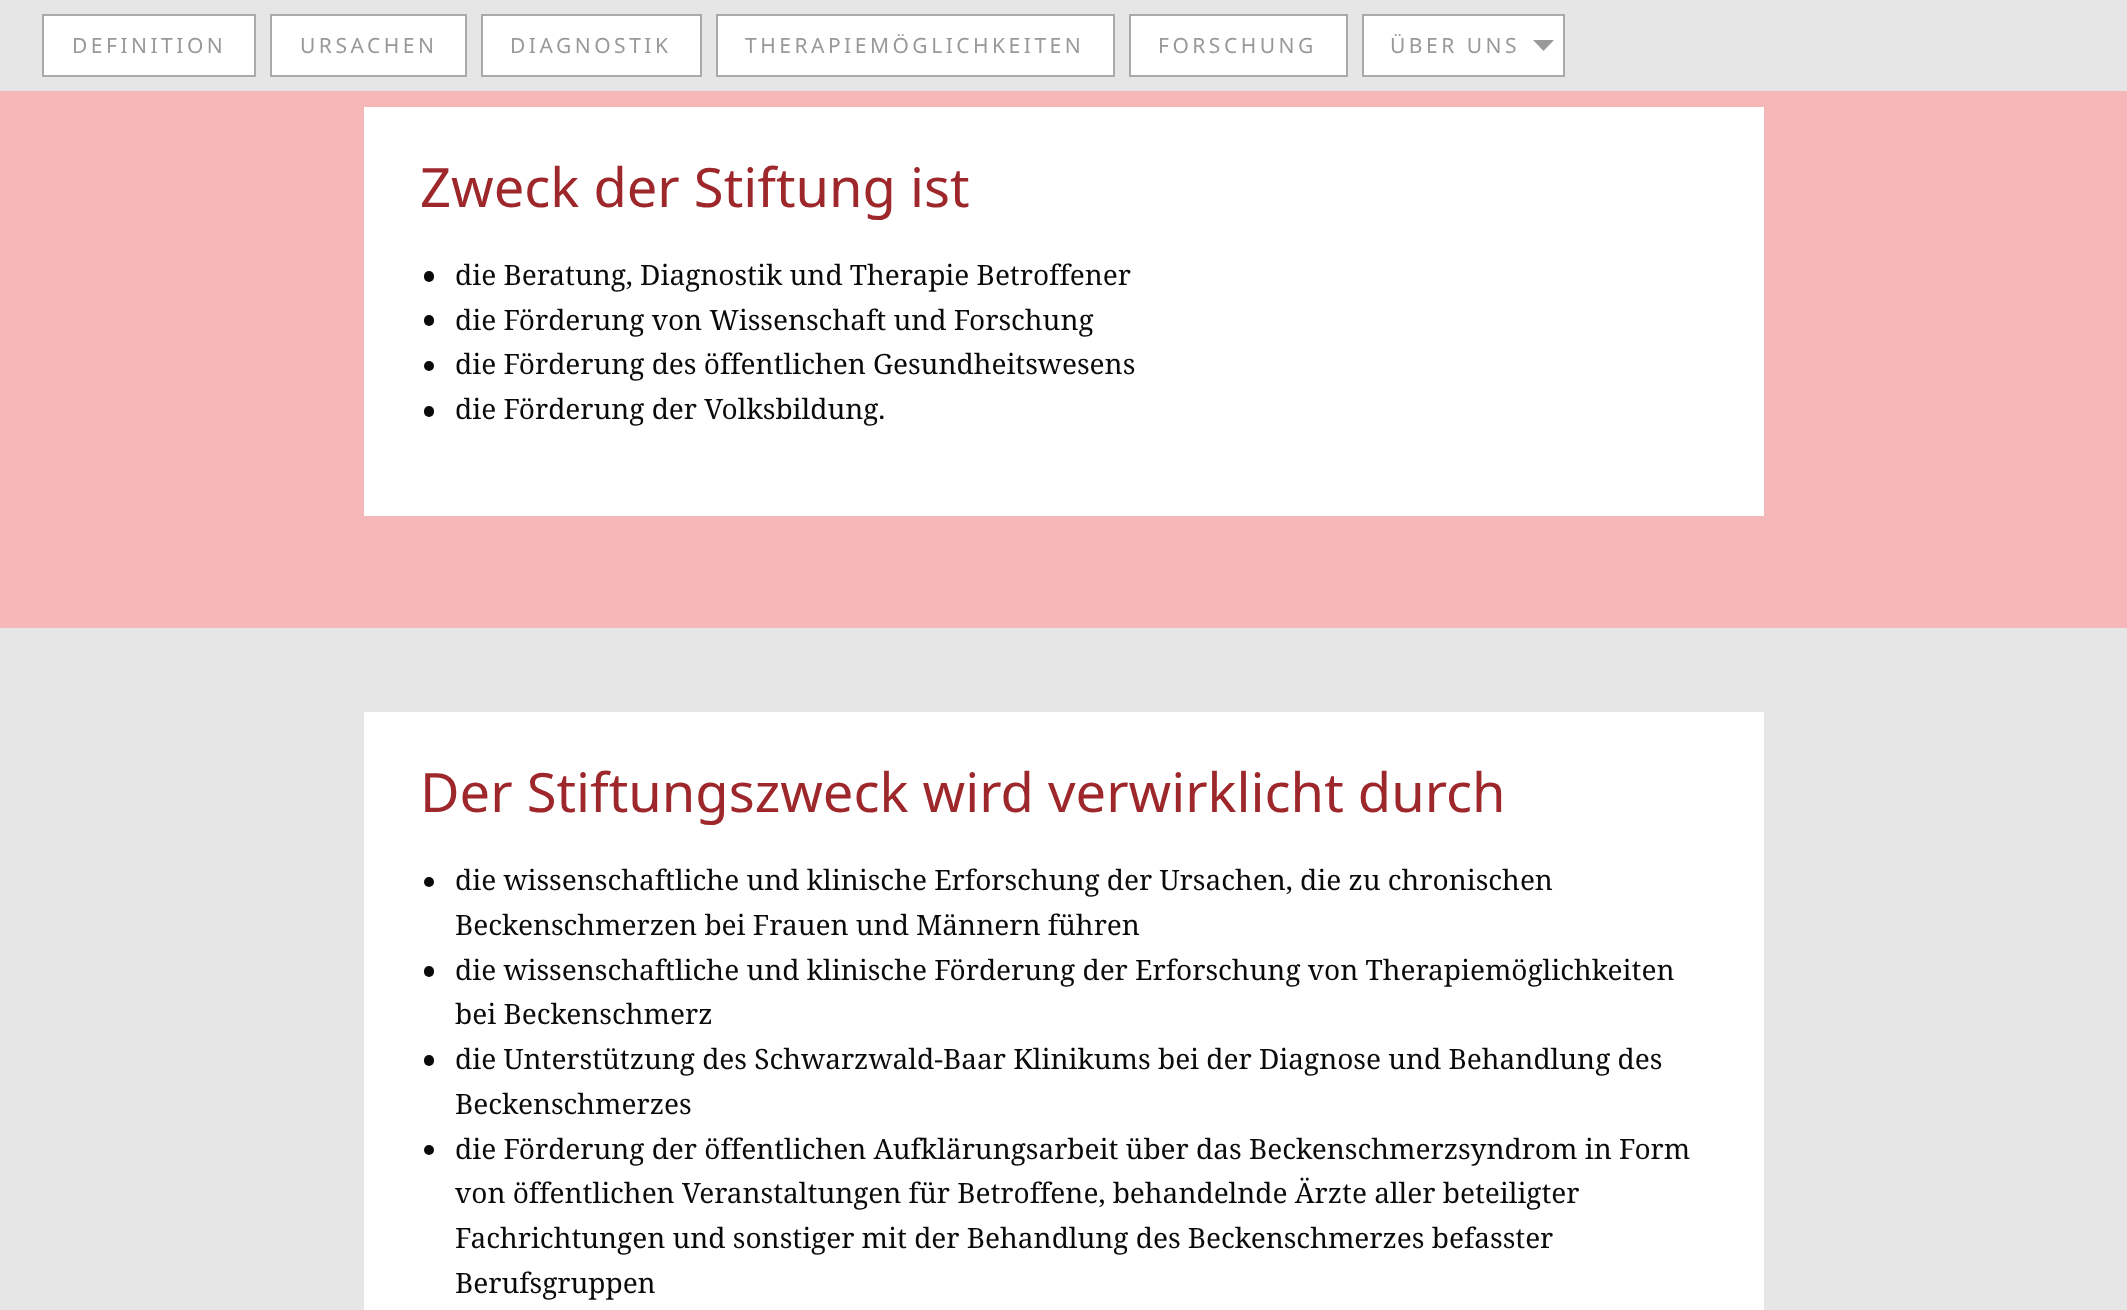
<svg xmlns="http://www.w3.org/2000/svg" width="2127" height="1310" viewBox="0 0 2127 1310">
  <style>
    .t1 { font: 21px Noto Sans; letter-spacing: 3.5px; fill: #999; }
    .t2 { font: 54.25px Noto Sans; fill: #9d272a; }
    .t3 { font: 28px Noto Serif; fill: #0a0a0a; }
  </style>
  <rect width="100%" height="100%" fill="#f6b7b9"/>
  <rect x="0" y="0" width="2127" height="91" fill="#e6e6e6"/>
  <rect x="43" y="15" width="212" height="61" fill="#fff" stroke="#aaa" stroke-width="2"/>
  <text x="72" y="53" class="t1">DEFINITION</text>
  <rect x="271" y="15" width="195" height="61" fill="#fff" stroke="#aaa" stroke-width="2"/>
  <text x="300" y="53" class="t1">URSACHEN</text>
  <rect x="482" y="15" width="219" height="61" fill="#fff" stroke="#aaa" stroke-width="2"/>
  <text x="510" y="53" class="t1">DIAGNOSTIK</text>
  <rect x="717" y="15" width="397" height="61" fill="#fff" stroke="#aaa" stroke-width="2"/>
  <text x="745" y="53" class="t1">THERAPIEMÖGLICHKEITEN</text>
  <rect x="1130" y="15" width="217" height="61" fill="#fff" stroke="#aaa" stroke-width="2"/>
  <text x="1158" y="53" class="t1">FORSCHUNG</text>
  <rect x="1363" y="15" width="201" height="61" fill="#fff" stroke="#aaa" stroke-width="2"/>
  <text x="1390" y="53" class="t1">ÜBER UNS</text>
  <path d="M1533 40H1554L1543.5 51Z" fill="#999"/>
  <rect x="364" y="107" width="1400" height="409" fill="#fff"/>
  <text x="420" y="207" class="t2">Zweck der Stiftung ist</text>
  <rect x="424" y="271" width="10" height="11" rx="5" fill="#0a0a0a"/>
  <text x="455" y="285" class="t3">die Beratung, Diagnostik und Therapie Betroffener</text>
  <rect x="424" y="315" width="10" height="11" rx="5" fill="#0a0a0a"/>
  <text x="455" y="330" class="t3">die Förderung von Wissenschaft und Forschung</text>
  <circle cx="429" cy="366" r="5" fill="#0a0a0a"/>
  <text x="455" y="374" class="t3">die Förderung des öffentlichen Gesundheitswesens</text>
  <rect x="424" y="406" width="10" height="11" rx="5" fill="#0a0a0a"/>
  <text x="455" y="419" class="t3">die Förderung der Volksbildung.</text>
  <rect x="0" y="628" width="2127" height="682" fill="#e6e6e6"/>
  <rect x="364" y="712" width="1400" height="598" fill="#fff"/>
  <text x="420" y="812" class="t2">Der Stiftungszweck wird verwirklicht durch</text>
  <circle cx="429" cy="882" r="5" fill="#0a0a0a"/>
  <text x="455" y="890" class="t3">die wissenschaftliche und klinische Erforschung der Ursachen, die zu chronischen</text>
  <text x="455" y="935" class="t3">Beckenschmerzen bei Frauen und Männern führen</text>
  <rect x="424" y="966" width="10" height="11" rx="5" fill="#0a0a0a"/>
  <text x="455" y="980" class="t3">die wissenschaftliche und klinische Förderung der Erforschung von Therapiemöglichkeiten</text>
  <text x="455" y="1024" class="t3">bei Beckenschmerz</text>
  <rect x="424" y="1055" width="10" height="11" rx="5" fill="#0a0a0a"/>
  <text x="455" y="1069" class="t3">die Unterstützung des Schwarzwald-Baar Klinikums bei der Diagnose und Behandlung des</text>
  <text x="455" y="1114" class="t3">Beckenschmerzes</text>
  <circle cx="429" cy="1150" r="5" fill="#0a0a0a"/>
  <text x="455" y="1159" class="t3">die Förderung der öffentlichen Aufklärungsarbeit über das Beckenschmerzsyndrom in Form</text>
  <text x="455" y="1203" class="t3">von öffentlichen Veranstaltungen für Betroffene, behandelnde Ärzte aller beteiligter</text>
  <text x="455" y="1248" class="t3">Fachrichtungen und sonstiger mit der Behandlung des Beckenschmerzes befasster</text>
  <text x="455" y="1293" class="t3">Berufsgruppen</text>
</svg>
